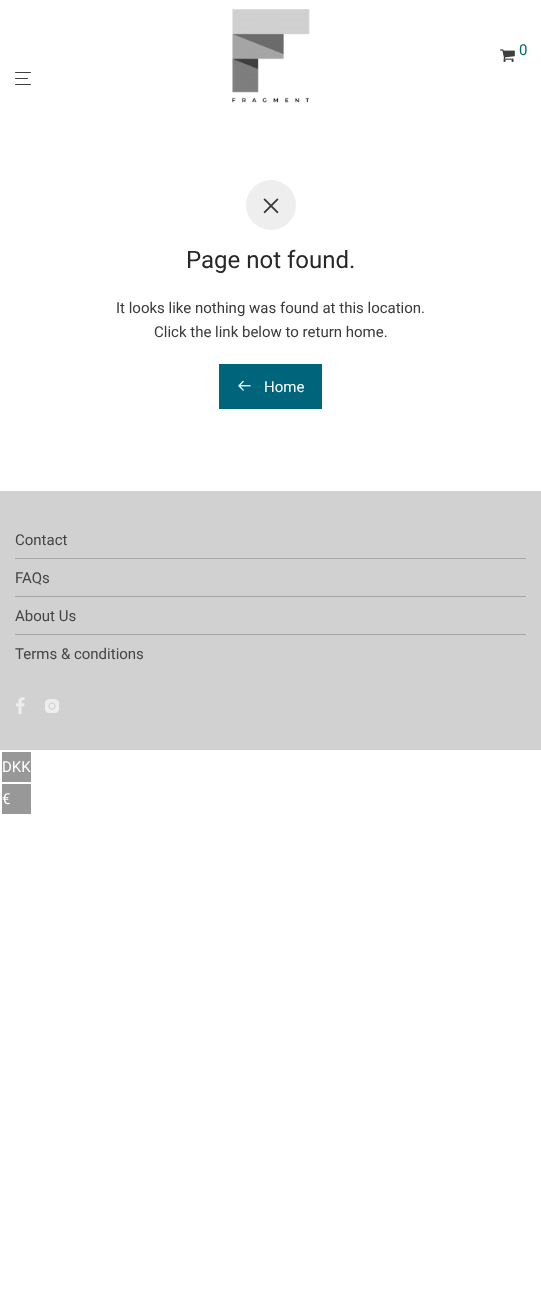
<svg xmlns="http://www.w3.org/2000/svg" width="541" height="1305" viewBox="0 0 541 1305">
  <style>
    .t1 { font: 15px Roboto; fill: #00657a; }
    .t2 { font: 24px Roboto; fill: #282828; }
    .t3 { font: 15px Roboto; fill: #3a3a3a; }
    .t4 { font: 15px Roboto; fill: #fff; }
    .t5 { font: 15px Roboto; fill: #444; }
  </style>
  <rect width="100%" height="100%" fill="#fff"/>
  <rect x="15" y="72" width="16" height="1" rx="0.5" fill="#3f3f3f"/>
  <rect x="15" y="78" width="13" height="1" rx="0.5" fill="#3f3f3f"/>
  <rect x="15" y="84" width="16" height="1" rx="0.5" fill="#3f3f3f"/>
  <image x="232" y="9" width="78" height="94" href="images/1.png"/>
  <image x="500" y="49" width="15" height="13" href="images/2.png"/>
  <text x="519" y="55" class="t1">0</text>
  <circle cx="271" cy="205" r="25" fill="#eee"/>
  <image x="263" y="198" width="16" height="16" href="images/3.png"/>
  <text x="186" y="268" class="t2">Page not found.</text>
  <text x="116" y="313" class="t3">It looks like nothing was found at this location.</text>
  <text x="154" y="337" class="t3">Click the link below to return home.</text>
  <rect x="219" y="364" width="103" height="45" fill="#00657a"/>
  <image x="238" y="380" width="13" height="11" href="images/4.png"/>
  <text x="264" y="392" class="t4">Home</text>
  <rect x="0" y="491" width="541" height="259" fill="#d1d1d1"/>
  <rect x="15" y="558" width="511" height="1" fill="#a6a6a6"/>
  <text x="15" y="545" class="t5">Contact</text>
  <rect x="15" y="596" width="511" height="1" fill="#a6a6a6"/>
  <text x="15" y="583" class="t5">FAQs</text>
  <rect x="15" y="634" width="511" height="1" fill="#a6a6a6"/>
  <text x="15" y="621" class="t5">About Us</text>
  <text x="15" y="659" class="t5">Terms &amp; conditions</text>
  <image x="16" y="697" width="9" height="17" href="images/5.png"/>
  <image x="45" y="699" width="14" height="14" href="images/6.png"/>
  <rect x="2" y="752" width="29" height="30" fill="#989898"/>
  <text x="2" y="772" class="t4">DKK</text>
  <rect x="2" y="784" width="29" height="30" fill="#989898"/>
  <text x="2" y="804" class="t4">€</text>
</svg>
